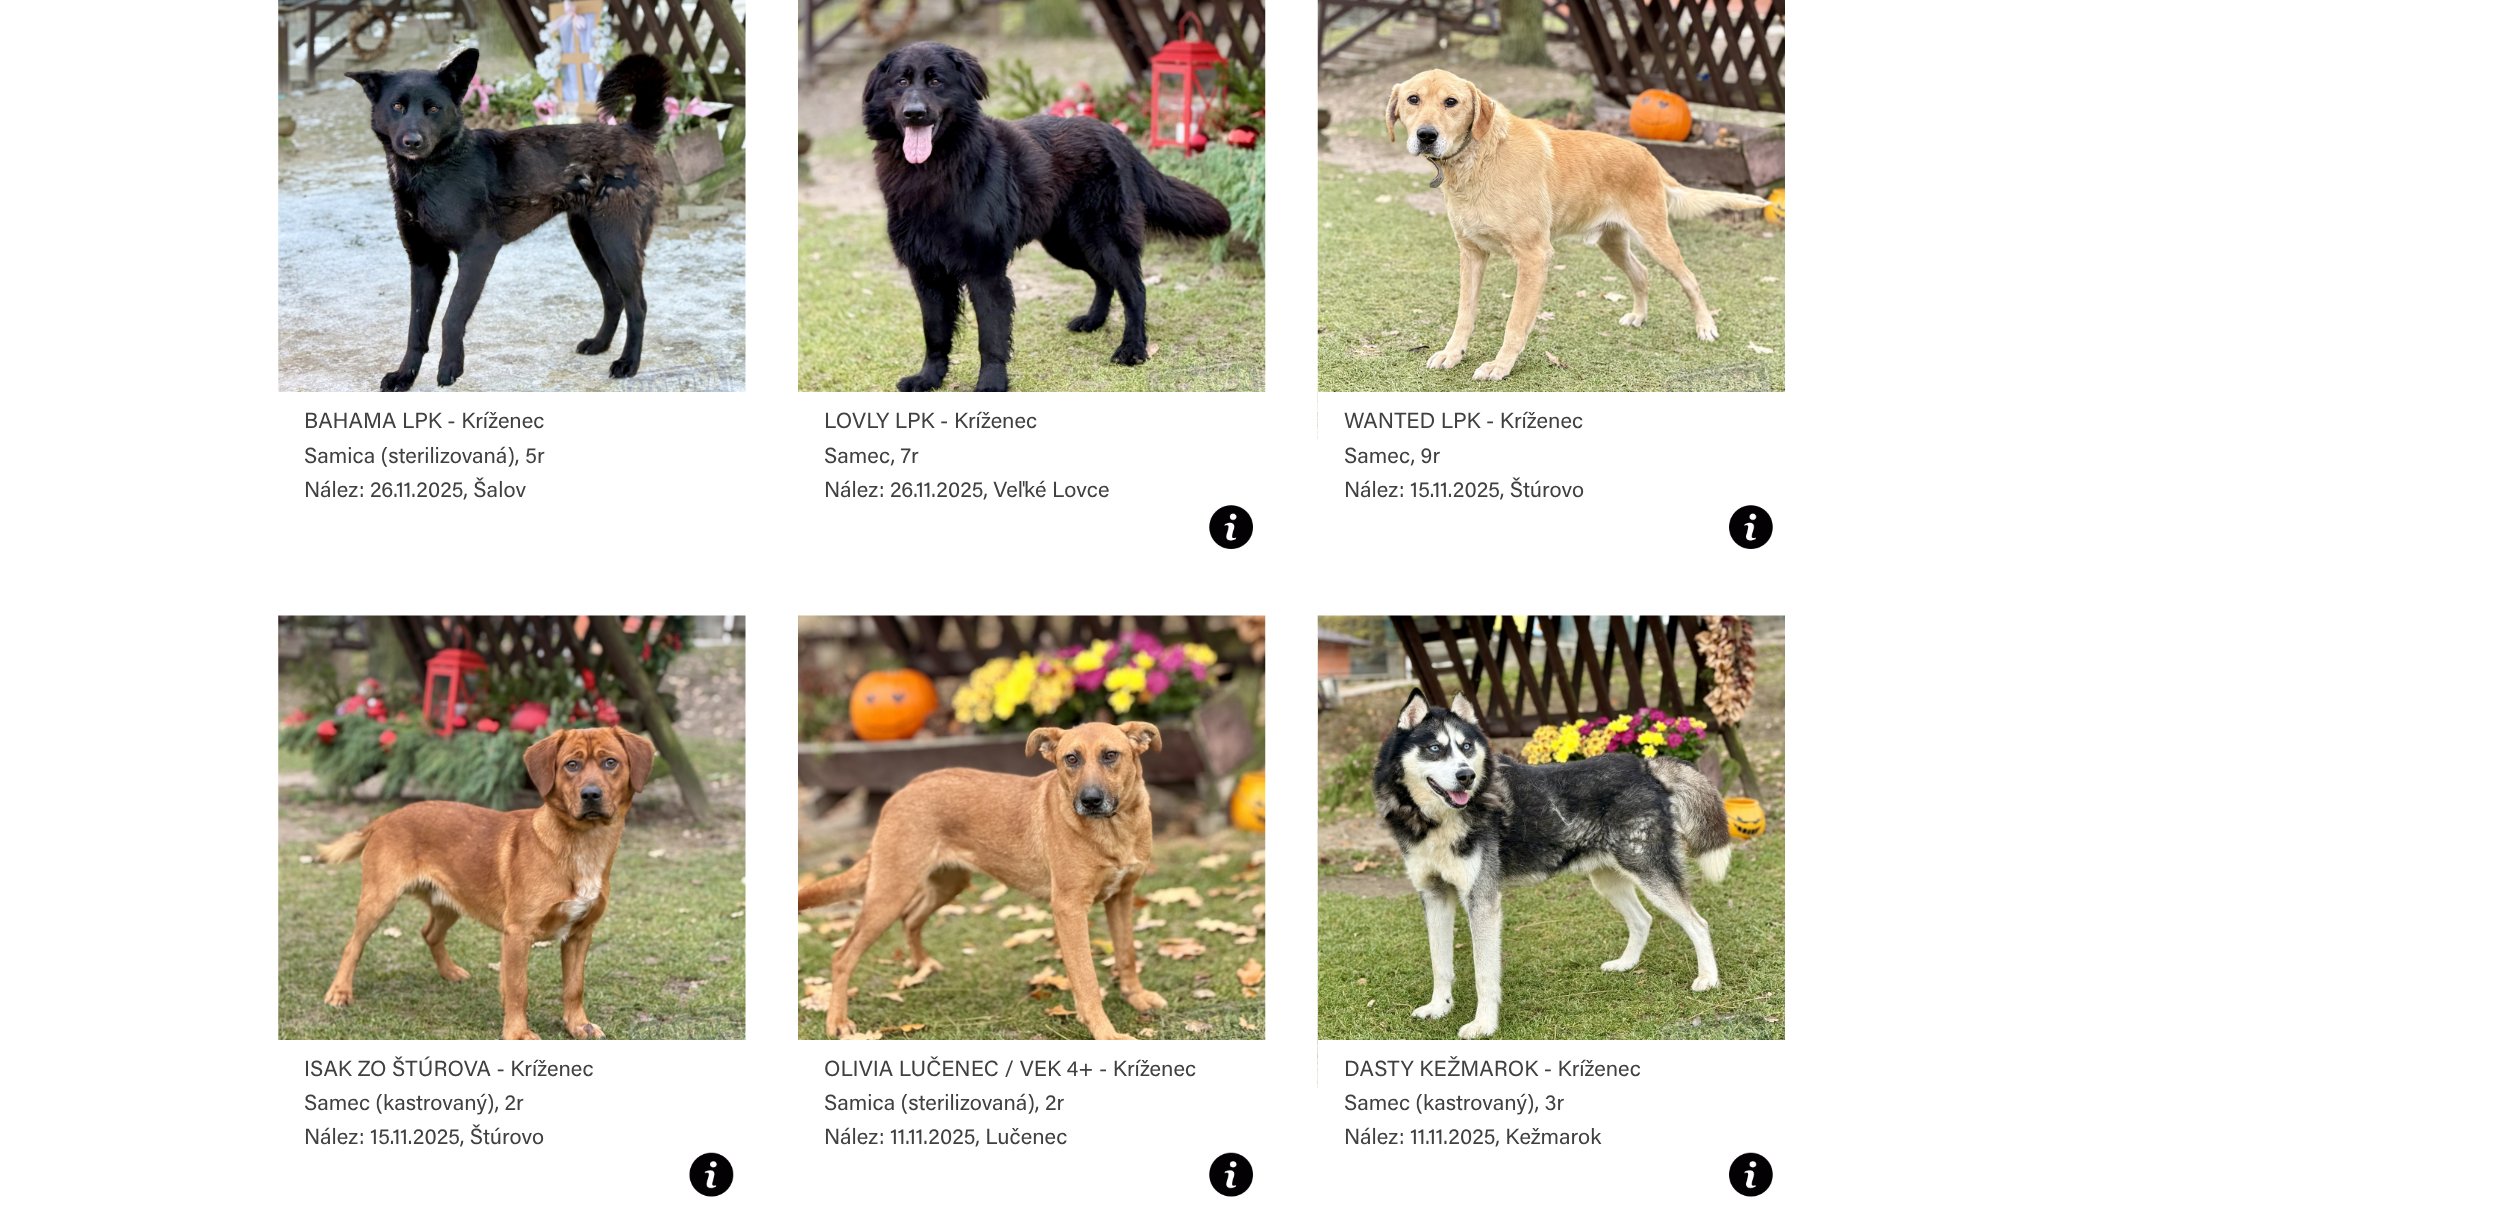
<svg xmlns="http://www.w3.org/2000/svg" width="2497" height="1218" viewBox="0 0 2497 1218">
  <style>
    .t1 { font: 21.9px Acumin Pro; fill: #404040; }
  </style>
  <rect width="100%" height="100%" fill="#fff"/>
  <image x="278" y="0" width="468" height="392" href="images/1.png"/>
  <text x="304" y="428" class="t1">BAHAMA LPK - Kríženec</text>
  <text x="304" y="463" class="t1">Samica (sterilizovaná), 5r</text>
  <text x="304" y="497" class="t1">Nález: 26.11.2025, Šalov</text>
  <image x="798" y="0" width="468" height="392" href="images/2.png"/>
  <text x="824" y="428" class="t1">LOVLY LPK - Kríženec</text>
  <text x="824" y="463" class="t1">Samec, 7r</text>
  <text x="824" y="497" class="t1">Nález: 26.11.2025, Veľké Lovce</text>
  <image x="1209" y="505" width="44" height="44" href="images/3.png"/>
  <image x="1317" y="0" width="468" height="441" href="images/4.png"/>
  <rect x="1318" y="392" width="467" height="49" fill="#fff"/>
  <text x="1344" y="428" class="t1">WANTED LPK - Kríženec</text>
  <text x="1344" y="463" class="t1">Samec, 9r</text>
  <text x="1344" y="497" class="t1">Nález: 15.11.2025, Štúrovo</text>
  <image x="1729" y="505" width="44" height="44" href="images/5.png"/>
  <image x="278" y="615" width="468" height="425" href="images/6.png"/>
  <text x="304" y="1076" class="t1">ISAK ZO ŠTÚROVA - Kríženec</text>
  <text x="304" y="1110" class="t1">Samec (kastrovaný), 2r</text>
  <text x="304" y="1144" class="t1">Nález: 15.11.2025, Štúrovo</text>
  <image x="689" y="1152" width="45" height="45" href="images/7.png"/>
  <image x="798" y="615" width="468" height="425" href="images/8.png"/>
  <text x="824" y="1076" class="t1">OLIVIA LUČENEC / VEK 4+ - Kríženec</text>
  <text x="824" y="1110" class="t1">Samica (sterilizovaná), 2r</text>
  <text x="824" y="1144" class="t1">Nález: 11.11.2025, Lučenec</text>
  <image x="1209" y="1152" width="44" height="45" href="images/9.png"/>
  <image x="1317" y="615" width="468" height="473" href="images/10.png"/>
  <rect x="1318" y="1040" width="467" height="48" fill="#fff"/>
  <text x="1344" y="1076" class="t1">DASTY KEŽMAROK - Kríženec</text>
  <text x="1344" y="1110" class="t1">Samec (kastrovaný), 3r</text>
  <text x="1344" y="1144" class="t1">Nález: 11.11.2025, Kežmarok</text>
  <image x="1729" y="1152" width="44" height="45" href="images/11.png"/>
</svg>
